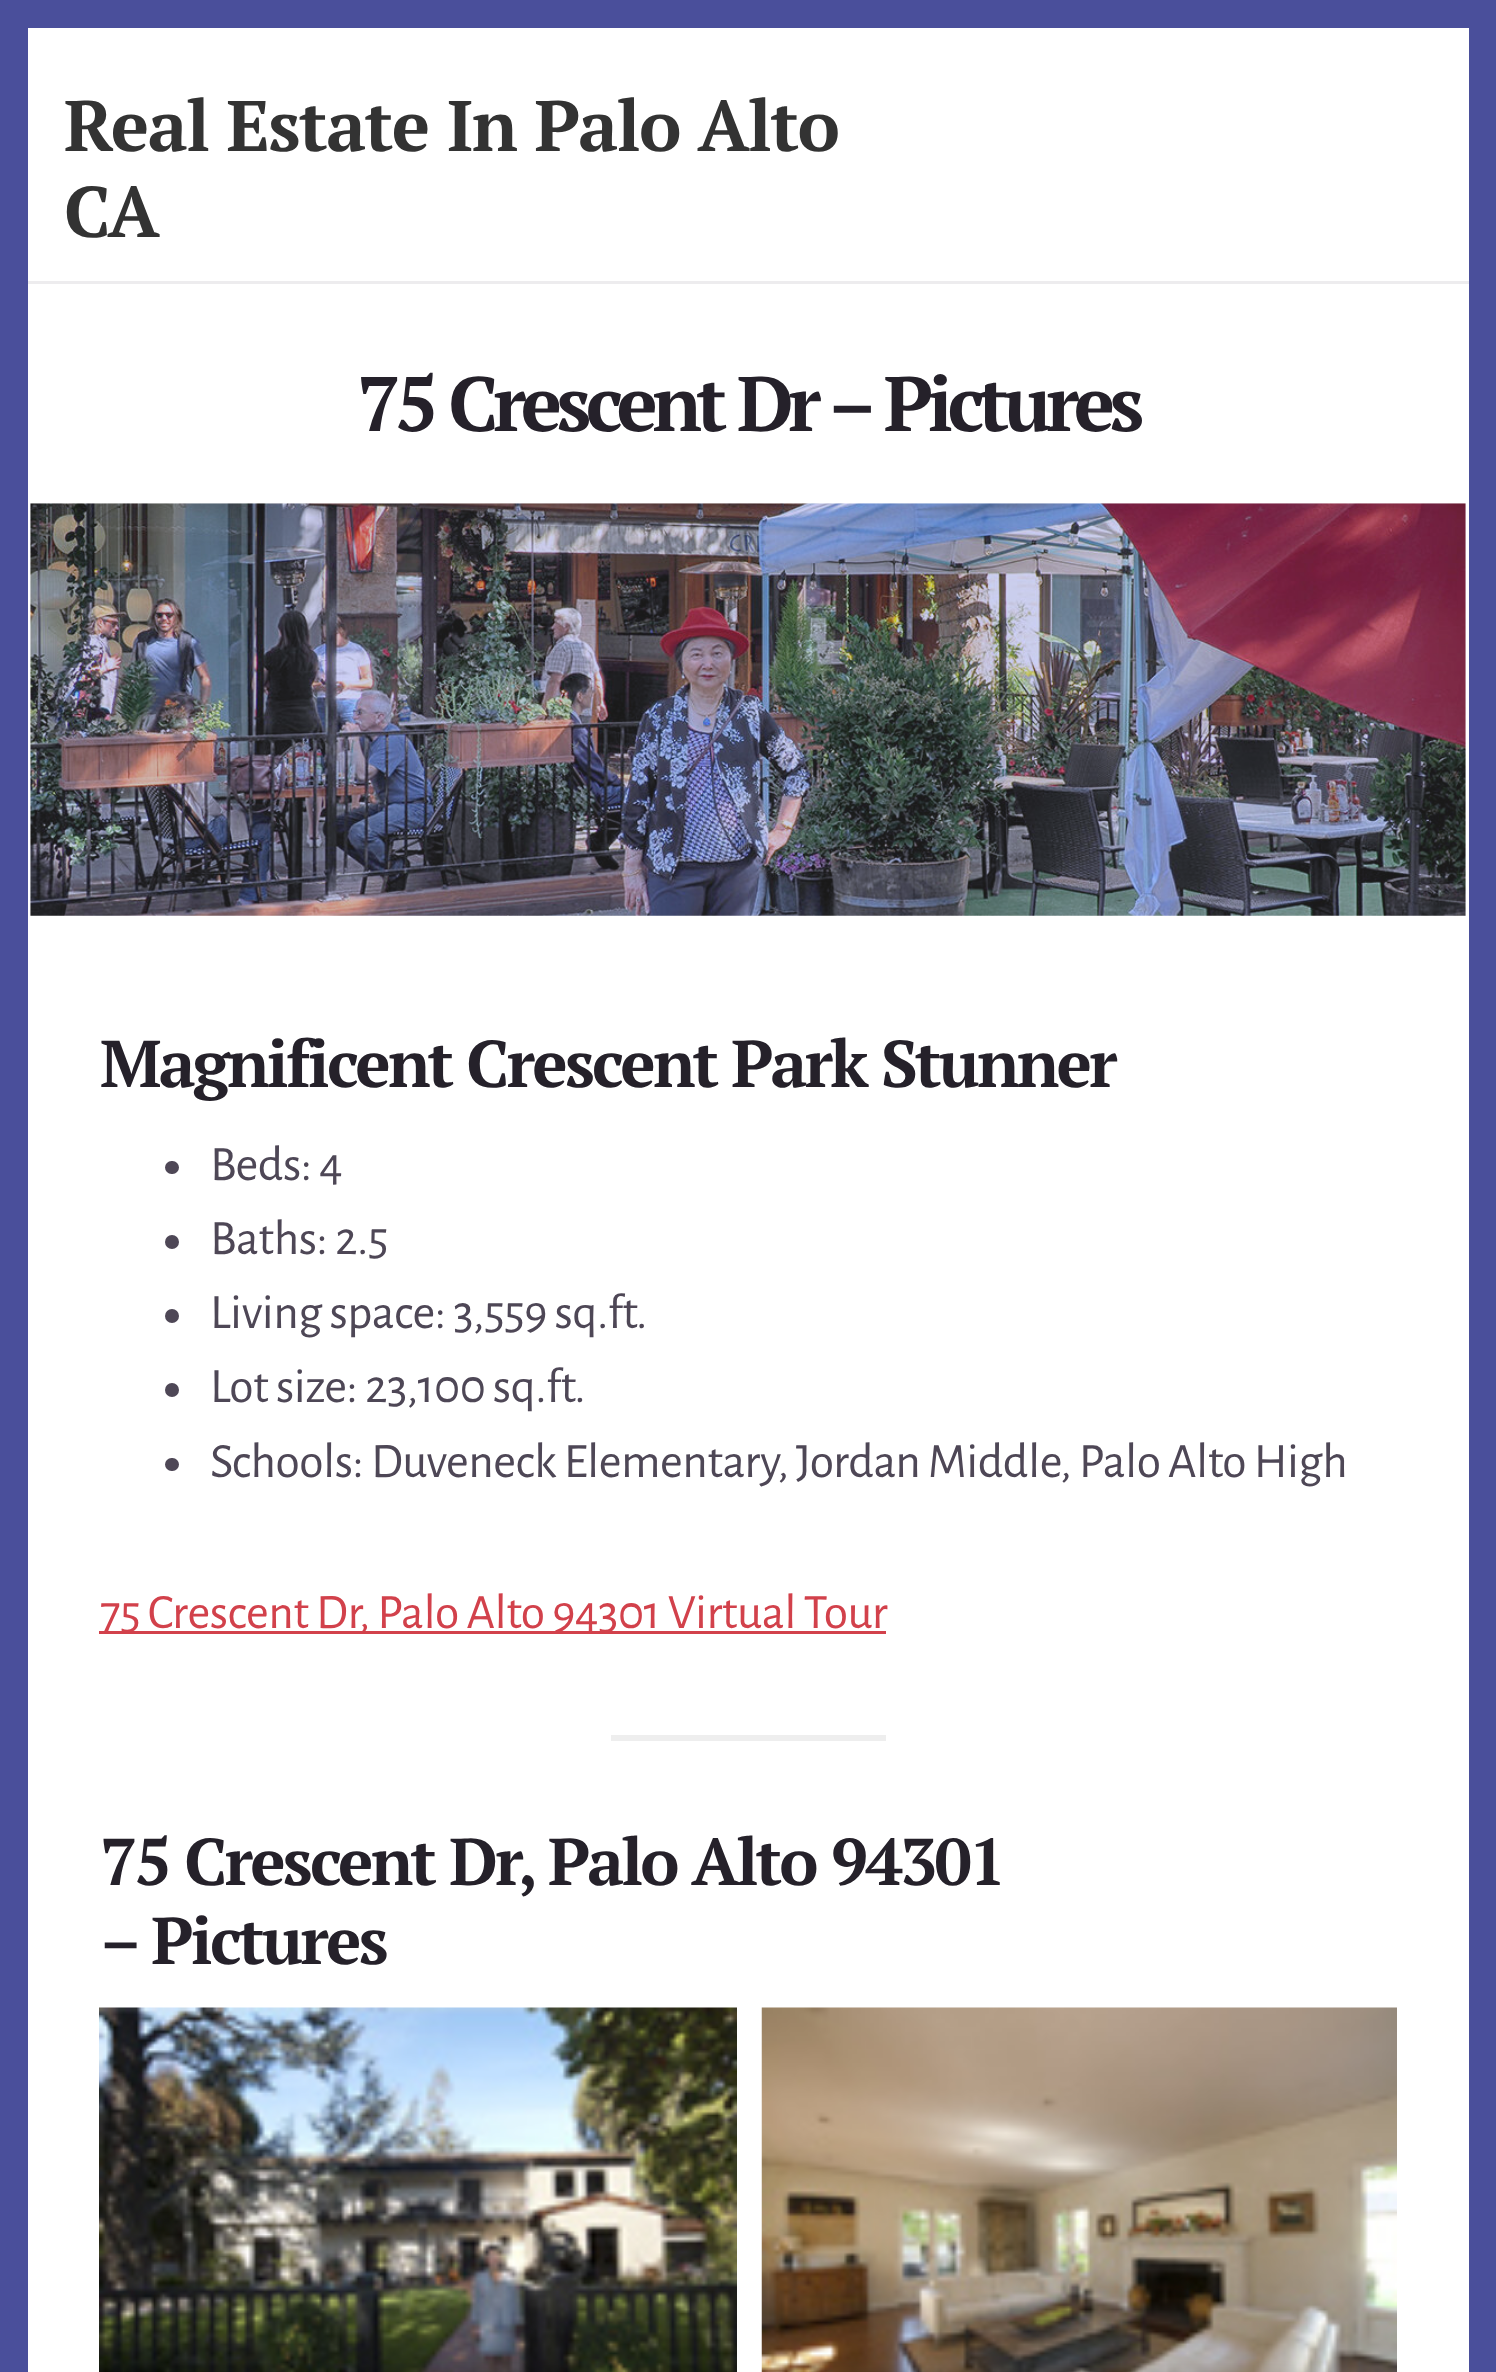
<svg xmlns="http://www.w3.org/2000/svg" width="1496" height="2372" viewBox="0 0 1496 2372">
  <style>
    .t1 { font: bold 71.5px PT Serif; letter-spacing: -1.4px; fill: #333; }
    .t2 { font: bold 77px PT Serif; letter-spacing: -5.5px; fill: #25212a; }
    .t3 { font: bold 66px PT Serif; letter-spacing: -2.75px; fill: #25212a; }
    .t4 { font: 49.5px Alegreya Sans; letter-spacing: -0.55px; fill: #4e4756; }
    .t5 { font: 49.5px Alegreya Sans; letter-spacing: -0.55px; fill: #d2414b; }
  </style>
  <rect width="100%" height="100%" fill="#4a4f9b"/>
  <rect x="28" y="28" width="1441" height="2344" fill="#fff"/>
  <rect x="28" y="281" width="1441" height="3" fill="#edecee"/>
  <text x="64" y="151" class="t1">Real Estate In Palo Alto</text>
  <text x="64" y="237" class="t1">CA</text>
  <text x="357" y="431" class="t2">75 Crescent Dr – Pictures</text>
  <image x="30" y="503" width="1436" height="413" href="images/1.png"/>
  <text x="100" y="1087" class="t3">Magnificent Crescent Park Stunner</text>
  <rect x="165" y="1161" width="14" height="13" rx="6.5" fill="#4e4756"/>
  <text x="210" y="1180" class="t4">Beds: 4</text>
  <circle cx="172" cy="1242" r="7" fill="#4e4756"/>
  <text x="210" y="1254" class="t4">Baths: 2.5</text>
  <circle cx="172" cy="1316" r="7" fill="#4e4756"/>
  <text x="210" y="1328" class="t4">Living space: 3,559 sq.ft.</text>
  <circle cx="172" cy="1390" r="7" fill="#4e4756"/>
  <text x="210" y="1402" class="t4">Lot size: 23,100 sq.ft.</text>
  <rect x="165" y="1458" width="14" height="13" rx="6.5" fill="#4e4756"/>
  <text x="210" y="1477" class="t4">Schools: Duveneck Elementary, Jordan Middle, Palo Alto High</text>
  <rect x="99" y="1631" width="787" height="3" fill="#d2414b"/>
  <text x="100" y="1628" class="t5">75 Crescent Dr, Palo Alto 94301 Virtual Tour</text>
  <rect x="611" y="1735" width="275" height="6" fill="#eee"/>
  <text x="100" y="1885" class="t3">75 Crescent Dr, Palo Alto 94301</text>
  <text x="100" y="1964" class="t3">– Pictures</text>
  <image x="99" y="2007" width="638" height="365" href="images/2.png"/>
  <image x="761" y="2007" width="636" height="365" href="images/3.png"/>
</svg>
